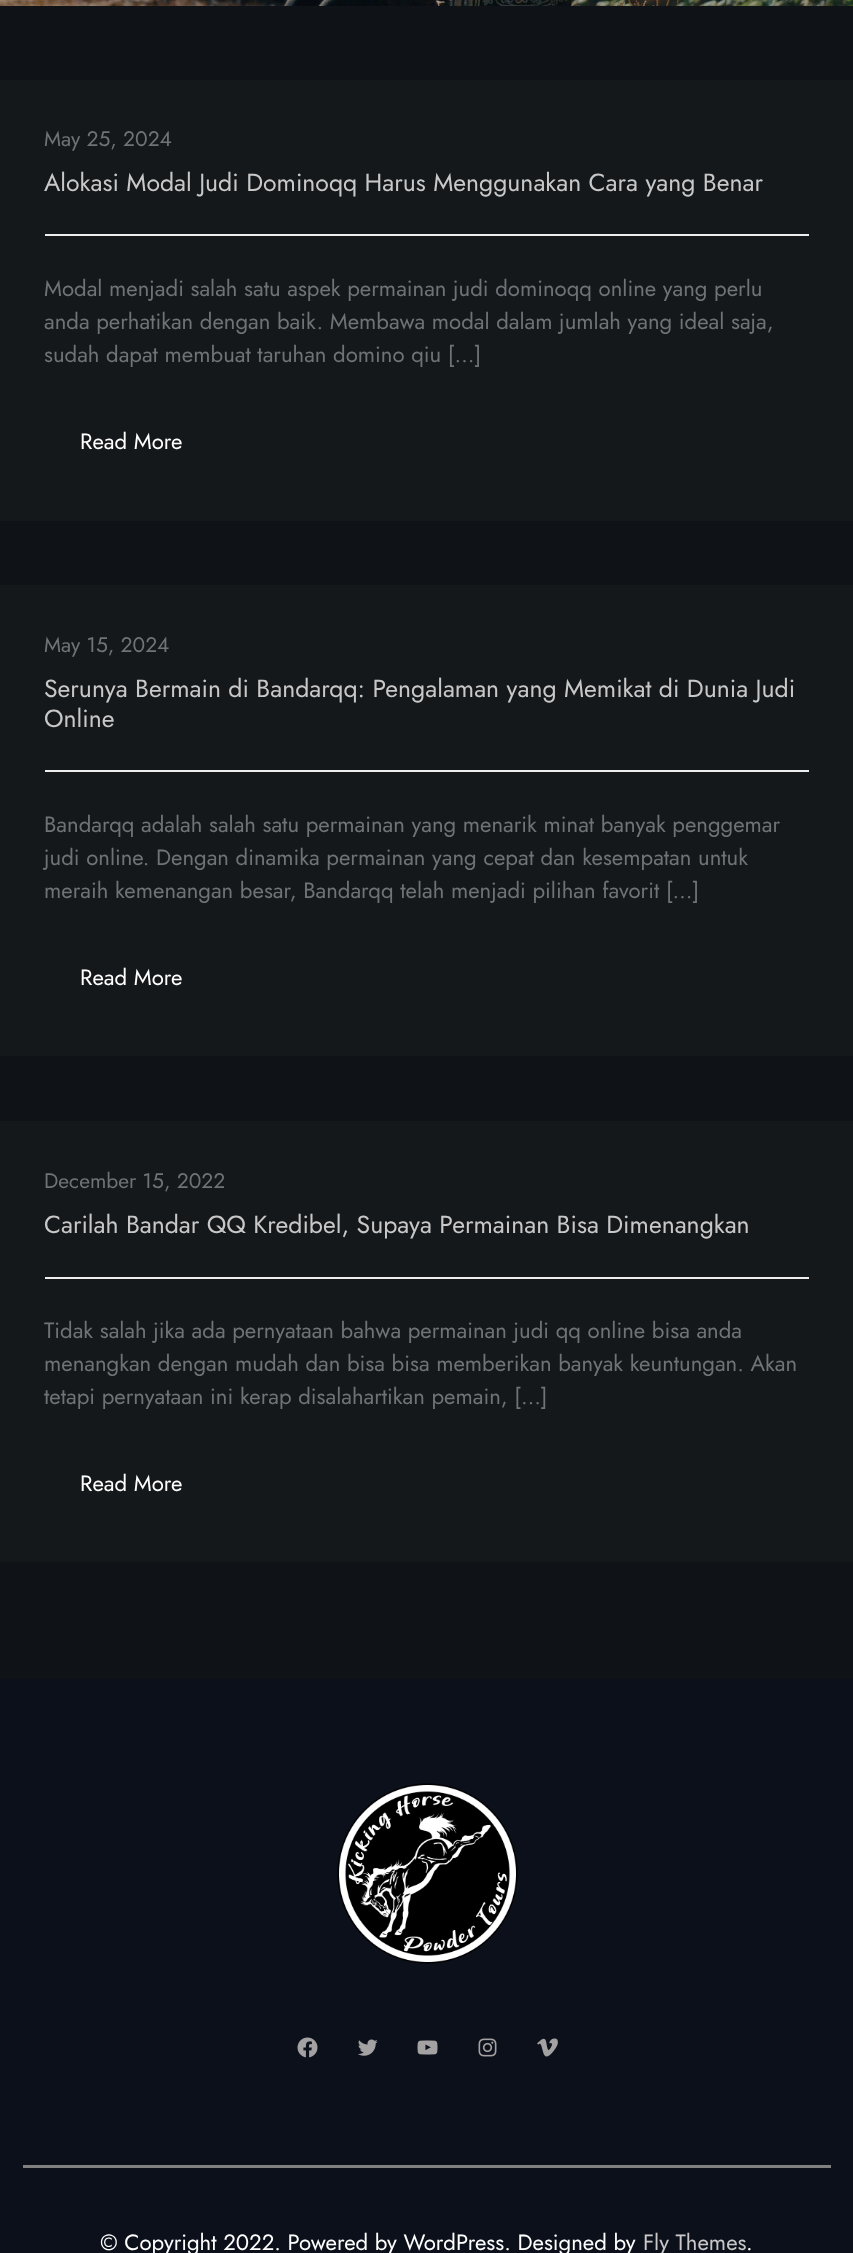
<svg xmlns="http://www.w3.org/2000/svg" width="853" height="2253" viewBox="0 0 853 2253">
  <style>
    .t1 { font: 21px Jost; fill: #707376; }
    .t2 { font: 24.8px Jost; fill: #c8c8c8; }
    .t3 { font: 22.15px Jost; fill: #707376; }
    .t4 { font: 22.15px Jost; fill: #fff; }
    .t5 { font: 22.15px Jost; fill: #c8c8c8; }
  </style>
  <rect width="100%" height="100%" fill="#0f1317"/>
  <image x="0" y="0" width="853" height="6" href="images/1.png"/>
  <rect x="0" y="80" width="853" height="441" fill="#15181b"/>
  <text x="44" y="146" class="t1">May 25, 2024</text>
  <text x="44" y="191" class="t2">Alokasi Modal Judi Dominoqq Harus Menggunakan Cara yang Benar</text>
  <rect x="45" y="234" width="764" height="2" fill="#ededed"/>
  <text x="44" y="296" class="t3">Modal menjadi salah satu aspek permainan judi dominoqq online yang perlu</text>
  <text x="44" y="329" class="t3">anda perhatikan dengan baik. Membawa modal dalam jumlah yang ideal saja,</text>
  <text x="44" y="362" class="t3">sudah dapat membuat taruhan domino qiu […]</text>
  <text x="80" y="449" class="t4">Read More</text>
  <rect x="0" y="585" width="853" height="471" fill="#15181b"/>
  <text x="44" y="652" class="t1">May 15, 2024</text>
  <text x="44" y="697" class="t2">Serunya Bermain di Bandarqq: Pengalaman yang Memikat di Dunia Judi</text>
  <text x="44" y="727" class="t2">Online</text>
  <rect x="45" y="770" width="764" height="2" fill="#ededed"/>
  <text x="44" y="832" class="t3">Bandarqq adalah salah satu permainan yang menarik minat banyak penggemar</text>
  <text x="44" y="865" class="t3">judi online. Dengan dinamika permainan yang cepat dan kesempatan untuk</text>
  <text x="44" y="898" class="t3">meraih kemenangan besar, Bandarqq telah menjadi pilihan favorit […]</text>
  <text x="80" y="985" class="t4">Read More</text>
  <rect x="0" y="1121" width="853" height="441" fill="#15181b"/>
  <text x="44" y="1188" class="t1">December 15, 2022</text>
  <text x="44" y="1233" class="t2">Carilah Bandar QQ Kredibel, Supaya Permainan Bisa Dimenangkan</text>
  <rect x="45" y="1277" width="764" height="2" fill="#ededed"/>
  <text x="44" y="1338" class="t3">Tidak salah jika ada pernyataan bahwa permainan judi qq online bisa anda</text>
  <text x="44" y="1371" class="t3">menangkan dengan mudah dan bisa bisa memberikan banyak keuntungan. Akan</text>
  <text x="44" y="1404" class="t3">tetapi pernyataan ini kerap disalahartikan pemain, […]</text>
  <text x="80" y="1491" class="t4">Read More</text>
  <rect x="0" y="1679" width="853" height="574" fill="#0c101a"/>
  <image x="337" y="1783" width="181" height="181" href="images/2.png"/>
  <image x="297" y="2037" width="21" height="21" href="images/3.png"/>
  <image x="358" y="2039" width="20" height="17" href="images/4.png"/>
  <image x="417" y="2040" width="21" height="15" href="images/5.png"/>
  <image x="478" y="2038" width="19" height="19" href="images/6.png"/>
  <image x="537" y="2038" width="21" height="19" href="images/7.png"/>
  <rect x="23" y="2165" width="808" height="3" fill="#808080"/>
  <text x="100" y="2250" class="t4">© Copyright 2022. Powered by WordPress. Designed by</text>
  <text x="643" y="2250" class="t5">Fly Themes</text>
  <text x="746" y="2250" class="t4">.</text>
</svg>
